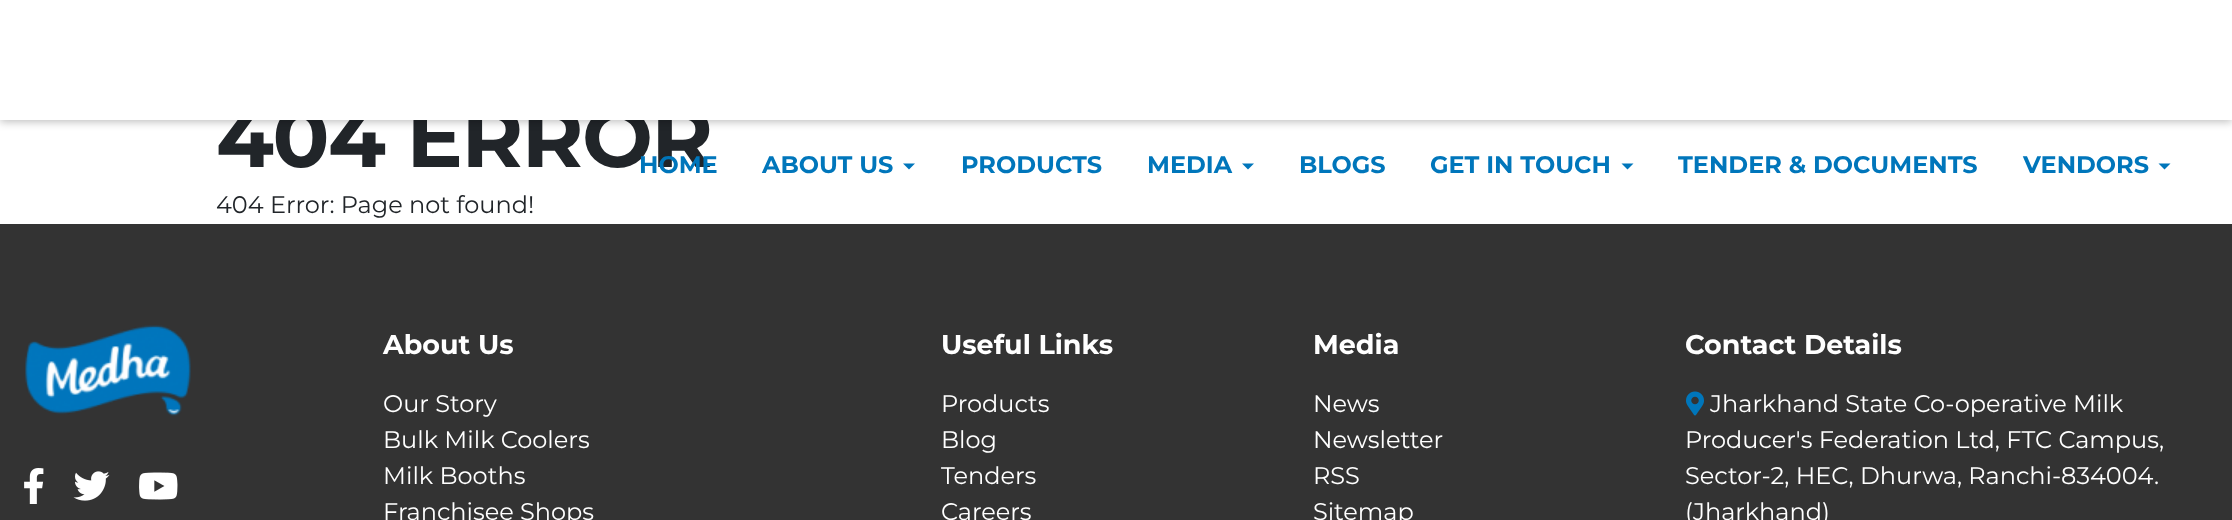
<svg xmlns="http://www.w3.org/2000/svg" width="2232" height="520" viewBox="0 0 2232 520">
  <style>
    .t1 { font: bold 84px Montserrat; letter-spacing: -1.5px; fill: #212529; }
    .t2 { font: 24px Montserrat; fill: #212529; }
    .t3 { font: bold 24px Montserrat; fill: #0076bb; }
    .t4 { font: bold 27px Montserrat; fill: #fff; }
    .t5 { font: 24px Montserrat; fill: #fff; }
  </style>
  <rect width="100%" height="100%" fill="#fff"/>
  <text x="216" y="167" class="t1">404 ERROR</text>
  <text x="216" y="213" class="t2">404 Error: Page not found!</text>
  <rect x="0" y="2" width="2232" height="120" fill="#00000040" filter="blur(4px)"/>
  <rect x="0" y="0" width="2232" height="120" fill="#fff"/>
  <text x="639" y="173" class="t3">HOME</text>
  <text x="762" y="173" class="t3">ABOUT US</text>
  <path d="M903 163.5H915L909 169.5Z" fill="#0076bb"/>
  <text x="961" y="173" class="t3">PRODUCTS</text>
  <text x="1147" y="173" class="t3">MEDIA</text>
  <path d="M1242 163.5H1254L1248 169.5Z" fill="#0076bb"/>
  <text x="1299" y="173" class="t3">BLOGS</text>
  <text x="1430" y="173" class="t3">GET IN TOUCH</text>
  <path d="M1621.5 163.5H1633.5L1627.5 169.5Z" fill="#0076bb"/>
  <text x="1678" y="173" class="t3">TENDER &amp; DOCUMENTS</text>
  <text x="2023" y="173" class="t3">VENDORS</text>
  <path d="M2158.5 163.5H2170.5L2164.5 169.5Z" fill="#0076bb"/>
  <rect x="0" y="224" width="2232" height="296" fill="#333"/>
  <image x="25" y="325" width="166" height="91" href="images/1.png"/>
  <image x="24" y="468" width="20" height="36" href="images/2.png"/>
  <image x="73" y="471" width="37" height="30" href="images/3.png"/>
  <image x="139" y="472" width="39" height="28" href="images/4.png"/>
  <text x="383" y="354" class="t4">About Us</text>
  <text x="383" y="412" class="t5">Our Story</text>
  <text x="383" y="448" class="t5">Bulk Milk Coolers</text>
  <text x="383" y="484" class="t5">Milk Booths</text>
  <text x="383" y="520" class="t5">Franchisee Shops</text>
  <text x="941" y="354" class="t4">Useful Links</text>
  <text x="941" y="412" class="t5">Products</text>
  <text x="941" y="448" class="t5">Blog</text>
  <text x="941" y="484" class="t5">Tenders</text>
  <text x="941" y="520" class="t5">Careers</text>
  <text x="1313" y="354" class="t4">Media</text>
  <text x="1313" y="412" class="t5">News</text>
  <text x="1313" y="448" class="t5">Newsletter</text>
  <text x="1313" y="484" class="t5">RSS</text>
  <text x="1313" y="520" class="t5">Sitemap</text>
  <text x="1685" y="354" class="t4">Contact Details</text>
  <image x="1686" y="391" width="18" height="25" href="images/5.png"/>
  <text x="1710" y="412" class="t5">Jharkhand State Co-operative Milk</text>
  <text x="1685" y="448" class="t5">Producer's Federation Ltd, FTC Campus,</text>
  <text x="1685" y="484" class="t5">Sector-2, HEC, Dhurwa, Ranchi-834004.</text>
  <text x="1685" y="520" class="t5">(Jharkhand)</text>
</svg>
